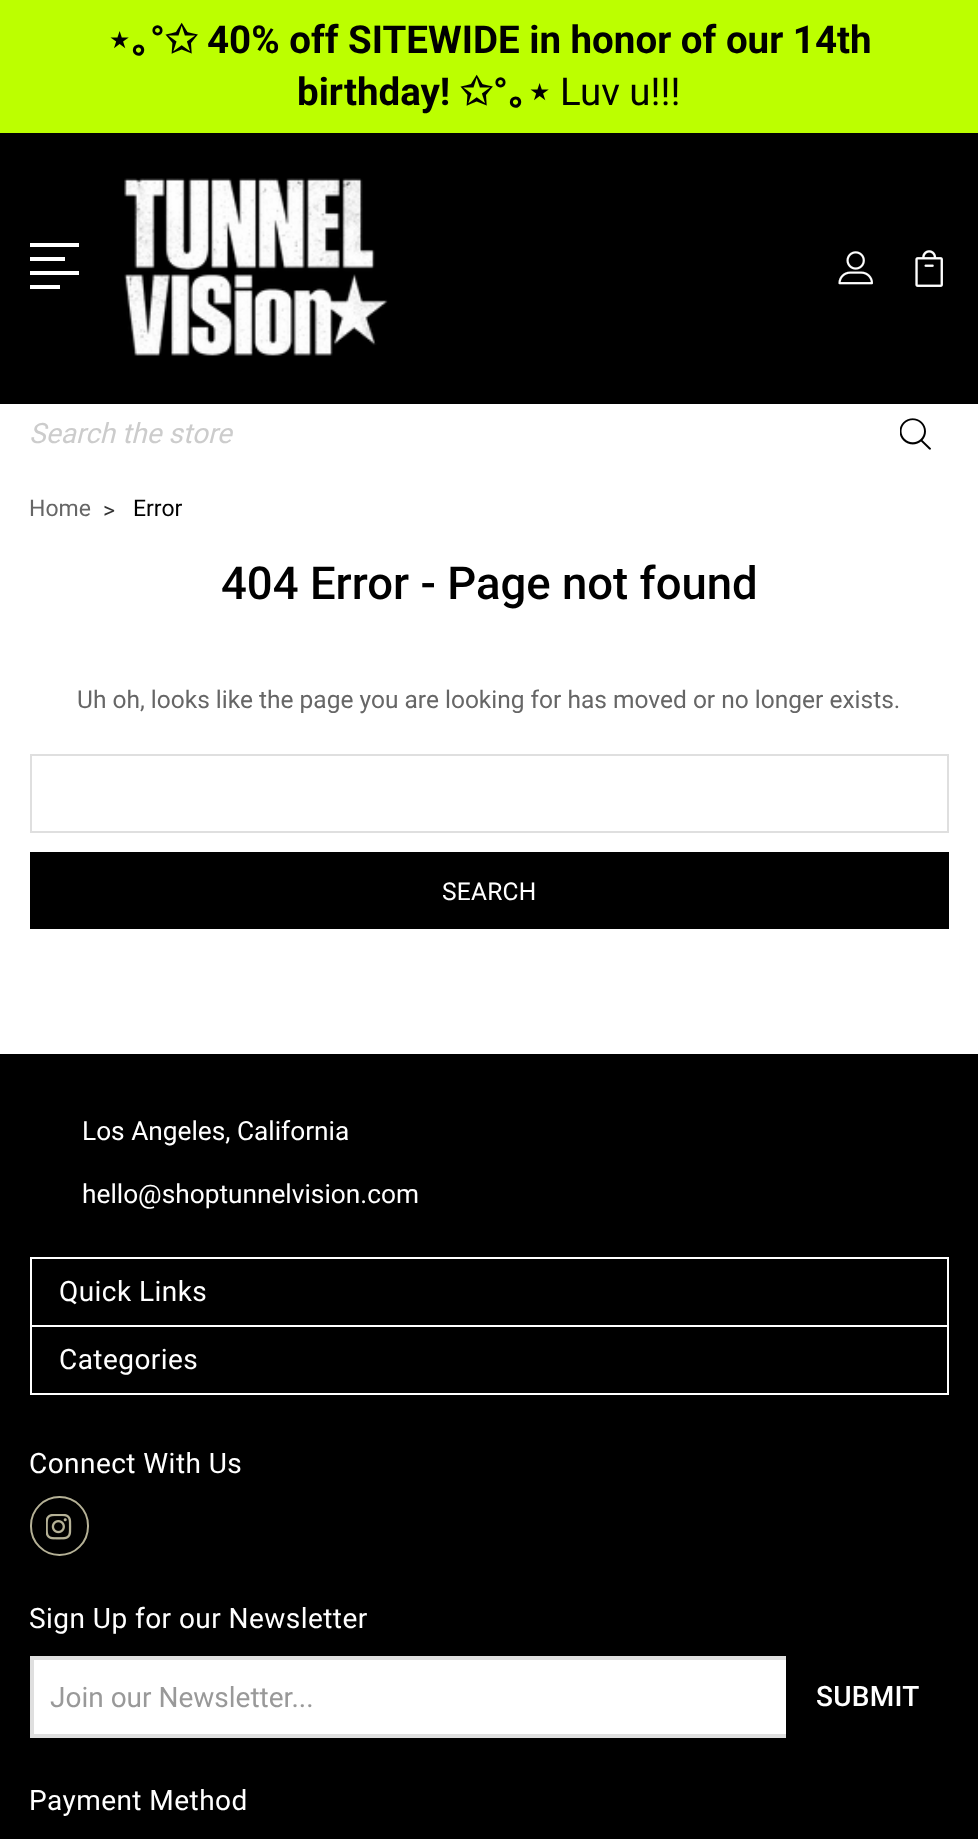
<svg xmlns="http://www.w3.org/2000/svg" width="978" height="1839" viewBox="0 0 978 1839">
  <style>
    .t1 { font: bold 38.5px Roboto; fill: #000; }
    .t2 { font: bold 38.5px DejaVu Sans; fill: #000; }
    .t3 { font: bold 38.5px IPAGothic; fill: #000; }
    .t4 { font: 38.5px Roboto; fill: #000; }
    .t5 { font: italic 28px Roboto; fill: #ccc; }
    .t6 { font: 23px Roboto; fill: #666; }
    .t7 { font: 23px Roboto; fill: #333; }
    .t8 { font: 23px Roboto; fill: #000; }
    .t9 { font: 500 45.5px Roboto; fill: #000; }
    .t10 { font: 24.5px Roboto; fill: #666; }
    .t11 { font: 24.5px Roboto; letter-spacing: 0.25px; fill: #fff; }
    .t12 { font: 26.25px Roboto; fill: #fff; }
    .t13 { font: 28px Roboto; letter-spacing: 0.45px; fill: #fff; }
    .t14 { font: 28px Roboto; fill: #999; }
    .t15 { font: 500 28px Roboto; letter-spacing: 0.25px; fill: #fff; }
  </style>
  <rect width="100%" height="100%" fill="#fff"/>
  <rect x="0" y="0" width="978" height="133" fill="#bcff00"/>
  <text x="150" y="53" class="t1">°</text>
  <text x="165" y="53" class="t2">✩</text>
  <text x="207" y="53" class="t1">40% off SITEWIDE in honor of our 14th</text>
  <text x="107" y="53" class="t2">⋆</text>
  <text x="131" y="53" class="t3">｡</text>
  <text x="297" y="105" class="t1">birthday!</text>
  <text x="460" y="105" class="t2">✩</text>
  <text x="493" y="105" class="t1">°</text>
  <text x="527" y="105" class="t2">⋆</text>
  <text x="560" y="105" class="t4">Luv u!!!</text>
  <text x="508" y="105" class="t3">｡</text>
  <rect x="0" y="133" width="978" height="271" fill="#000"/>
  <rect x="30" y="243" width="49" height="4" fill="#fff"/>
  <rect x="30" y="257" width="35" height="4" fill="#fff"/>
  <rect x="30" y="271" width="49" height="4" fill="#fff"/>
  <rect x="30" y="285" width="30" height="4" fill="#fff"/>
  <image x="124" y="178" width="264" height="178" href="images/1.png"/>
  <image x="838" y="251" width="35" height="34" href="images/2.png"/>
  <image x="915" y="250" width="28" height="37" href="images/3.png"/>
  <text x="29" y="443" class="t5">Search the store</text>
  <image x="900" y="418" width="31" height="32" href="images/4.png"/>
  <text x="29" y="516" class="t6">Home</text>
  <text x="103" y="518" class="t7">&gt;</text>
  <text x="133" y="516" class="t8">Error</text>
  <text x="221" y="599" class="t9">404 Error - Page not found</text>
  <text x="77" y="708" class="t10">Uh oh, looks like the page you are looking for has moved or no longer exists.</text>
  <rect x="31" y="755" width="917" height="77" fill="none" stroke="#dfdfdf" stroke-width="2"/>
  <rect x="30" y="852" width="919" height="77" fill="#000"/>
  <text x="442" y="900" class="t11">SEARCH</text>
  <rect x="0" y="1054" width="978" height="785" fill="#000"/>
  <text x="82" y="1140" class="t12">Los Angeles, California</text>
  <text x="82" y="1203" class="t12">hello@shoptunnelvision.com</text>
  <rect x="31" y="1258" width="917" height="68" fill="none" stroke="#fff" stroke-width="2"/>
  <text x="59" y="1301" class="t13">Quick Links</text>
  <rect x="31" y="1326" width="917" height="68" fill="none" stroke="#fff" stroke-width="2"/>
  <text x="59" y="1369" class="t13">Categories</text>
  <text x="29" y="1473" class="t13">Connect With Us</text>
  <rect x="31" y="1497" width="57" height="58" rx="28.5" fill="none" stroke="#b5b196" stroke-width="2"/>
  <image x="46" y="1514" width="26" height="26" href="images/5.png"/>
  <text x="29" y="1628" class="t13">Sign Up for our Newsletter</text>
  <rect x="34" y="1660" width="752" height="74" fill="#fff"/>
  <rect x="30" y="1656" width="756" height="4" fill="#dfdfdf"/>
  <rect x="30" y="1734" width="756" height="4" fill="#dfdfdf"/>
  <rect x="30" y="1656" width="4" height="82" fill="#dfdfdf"/>
  <text x="50" y="1707" class="t14">Join our Newsletter...</text>
  <text x="816" y="1706" class="t15">SUBMIT</text>
  <text x="29" y="1810" class="t13">Payment Method</text>
</svg>
